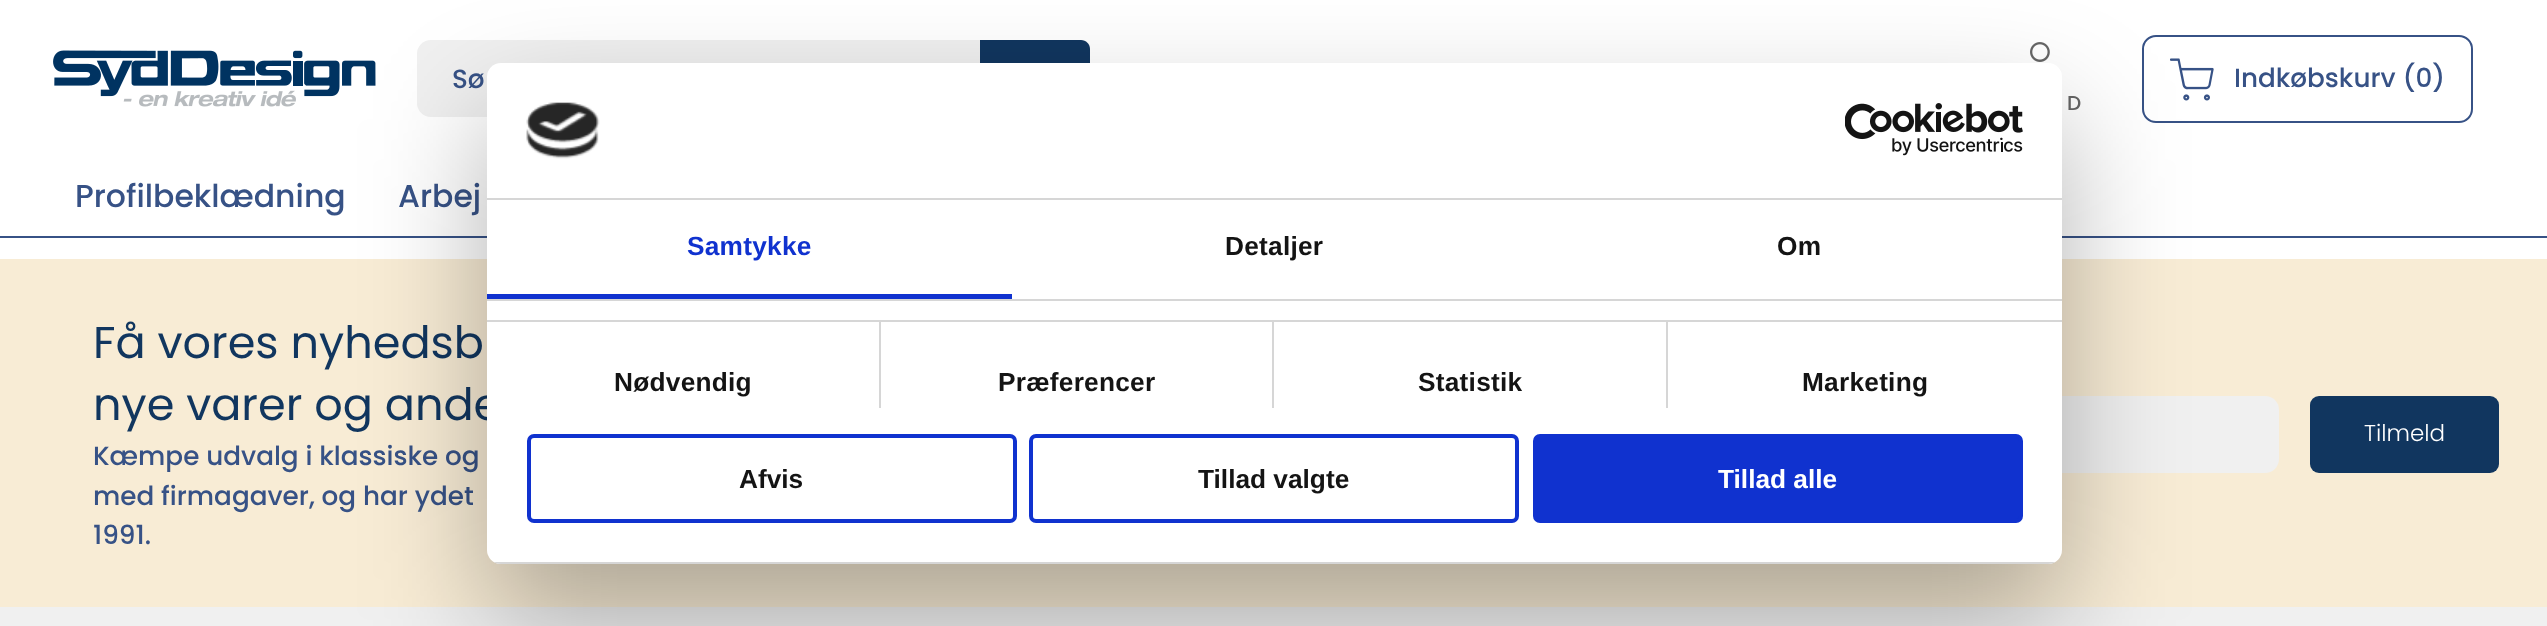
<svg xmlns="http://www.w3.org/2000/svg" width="2547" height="626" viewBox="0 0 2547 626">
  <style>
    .t1 { font: 500 26.25px Poppins; fill: #375286; }
    .t2 { font: 500 20px Poppins; fill: #666; }
    .t3 { font: 500 31.5px Poppins; fill: #375286; }
    .t4 { font: 44.6px Poppins; fill: #11365f; }
    .t5 { font: 300 23px Poppins; fill: #fff; }
    .t6 { font: bold 26.25px Liberation Sans; letter-spacing: 0.25px; fill: #1032cf; }
    .t7 { font: bold 26.25px Liberation Sans; letter-spacing: 0.25px; fill: #141414; }
    .t8 { font: bold 26.25px Liberation Sans; fill: #141414; }
    .t9 { font: bold 26.25px Liberation Sans; fill: #fff; }
  </style>
  <defs>
    <clipPath id="clip1"><rect x="487" y="63" width="1575" height="501" rx="14"/></clipPath>
  </defs>
  <rect width="100%" height="100%" fill="#fff"/>
  <image x="53" y="50" width="323" height="57" href="images/1.png"/>
  <rect x="417" y="40" width="673" height="77" rx="14" fill="#f0f0f0"/>
  <text x="452" y="88" class="t1">Sø</text>
  <path d="M980 40H1081C1086 40 1090 44 1090 49V108C1090 113 1086 117 1081 117H980Z" fill="#11365f"/>
  <rect x="2143" y="36" width="329" height="86" rx="13" fill="none" stroke="#375286" stroke-width="2"/>
  <image x="2170" y="58" width="44" height="43" href="images/2.png"/>
  <text x="2234" y="87" class="t1">Indkøbskurv (0)</text>
  <image x="2030" y="42" width="20" height="20" href="images/3.png"/>
  <text x="2067" y="110" class="t2">D</text>
  <rect x="0" y="236" width="2547" height="2" fill="#375286"/>
  <text x="75" y="207" class="t3">Profilbeklædning</text>
  <text x="398" y="207" class="t3">Arbej</text>
  <rect x="0" y="259" width="2547" height="348" fill="#f8ecd5"/>
  <text x="93" y="358" class="t4">Få vores nyhedsb</text>
  <text x="93" y="420" class="t4">nye varer og ande</text>
  <text x="93" y="465" class="t1">Kæmpe udvalg i klassiske og</text>
  <text x="93" y="505" class="t1">med firmagaver, og har ydet</text>
  <text x="93" y="544" class="t1">1991.</text>
  <rect x="1829" y="396" width="450" height="77" rx="14" fill="#f0f0f0"/>
  <rect x="2310" y="396" width="189" height="77" rx="9" fill="#11365f"/>
  <text x="2364" y="441" class="t5">Tilmeld</text>
  <rect x="0" y="607" width="2547" height="19" fill="#f0f0f0"/>
  <rect x="487" y="119" width="1575" height="501" rx="14" fill="#0000004d" filter="blur(59.5px)"/>
  <rect x="487" y="63" width="1575" height="501" rx="14" fill="#fff"/>
  <rect x="487" y="198" width="1575" height="2" fill="#d6d6d6"/>
  <image x="526" y="102" width="74" height="57" href="images/4.png"/>
  <image x="1845" y="103" width="178" height="53" href="images/5.png"/>
  <rect x="487" y="299" width="1575" height="2" fill="#d6d6d6"/>
  <rect x="487" y="294" width="525" height="5" fill="#1032cf"/>
  <text x="687" y="255" class="t6">Samtykke</text>
  <text x="1225" y="255" class="t7">Detaljer</text>
  <text x="1777" y="255" class="t7">Om</text>
  <rect x="487" y="320" width="1575" height="2" fill="#d6d6d6"/>
  <rect x="879" y="322" width="2" height="86" fill="#d6d6d6"/>
  <text x="614" y="391" class="t7">Nødvendig</text>
  <rect x="1272" y="322" width="2" height="86" fill="#d6d6d6"/>
  <text x="998" y="391" class="t7">Præferencer</text>
  <rect x="1666" y="322" width="2" height="86" fill="#d6d6d6"/>
  <text x="1418" y="391" class="t7">Statistik</text>
  <text x="1802" y="391" class="t7">Marketing</text>
  <g clip-path="url(#clip1)">
    <rect x="487" y="562" width="1575" height="2" fill="#d6d6d6"/>
  </g>
  <rect x="529" y="436" width="486" height="85" rx="5" fill="none" stroke="#1032cf" stroke-width="4"/>
  <text x="739" y="488" class="t8">Afvis</text>
  <rect x="1031" y="436" width="486" height="85" rx="5" fill="none" stroke="#1032cf" stroke-width="4"/>
  <text x="1198" y="488" class="t8">Tillad valgte</text>
  <rect x="1535" y="436" width="486" height="85" rx="5" fill="#1032cf" stroke="#1032cf" stroke-width="4"/>
  <text x="1718" y="488" class="t9">Tillad alle</text>
</svg>
